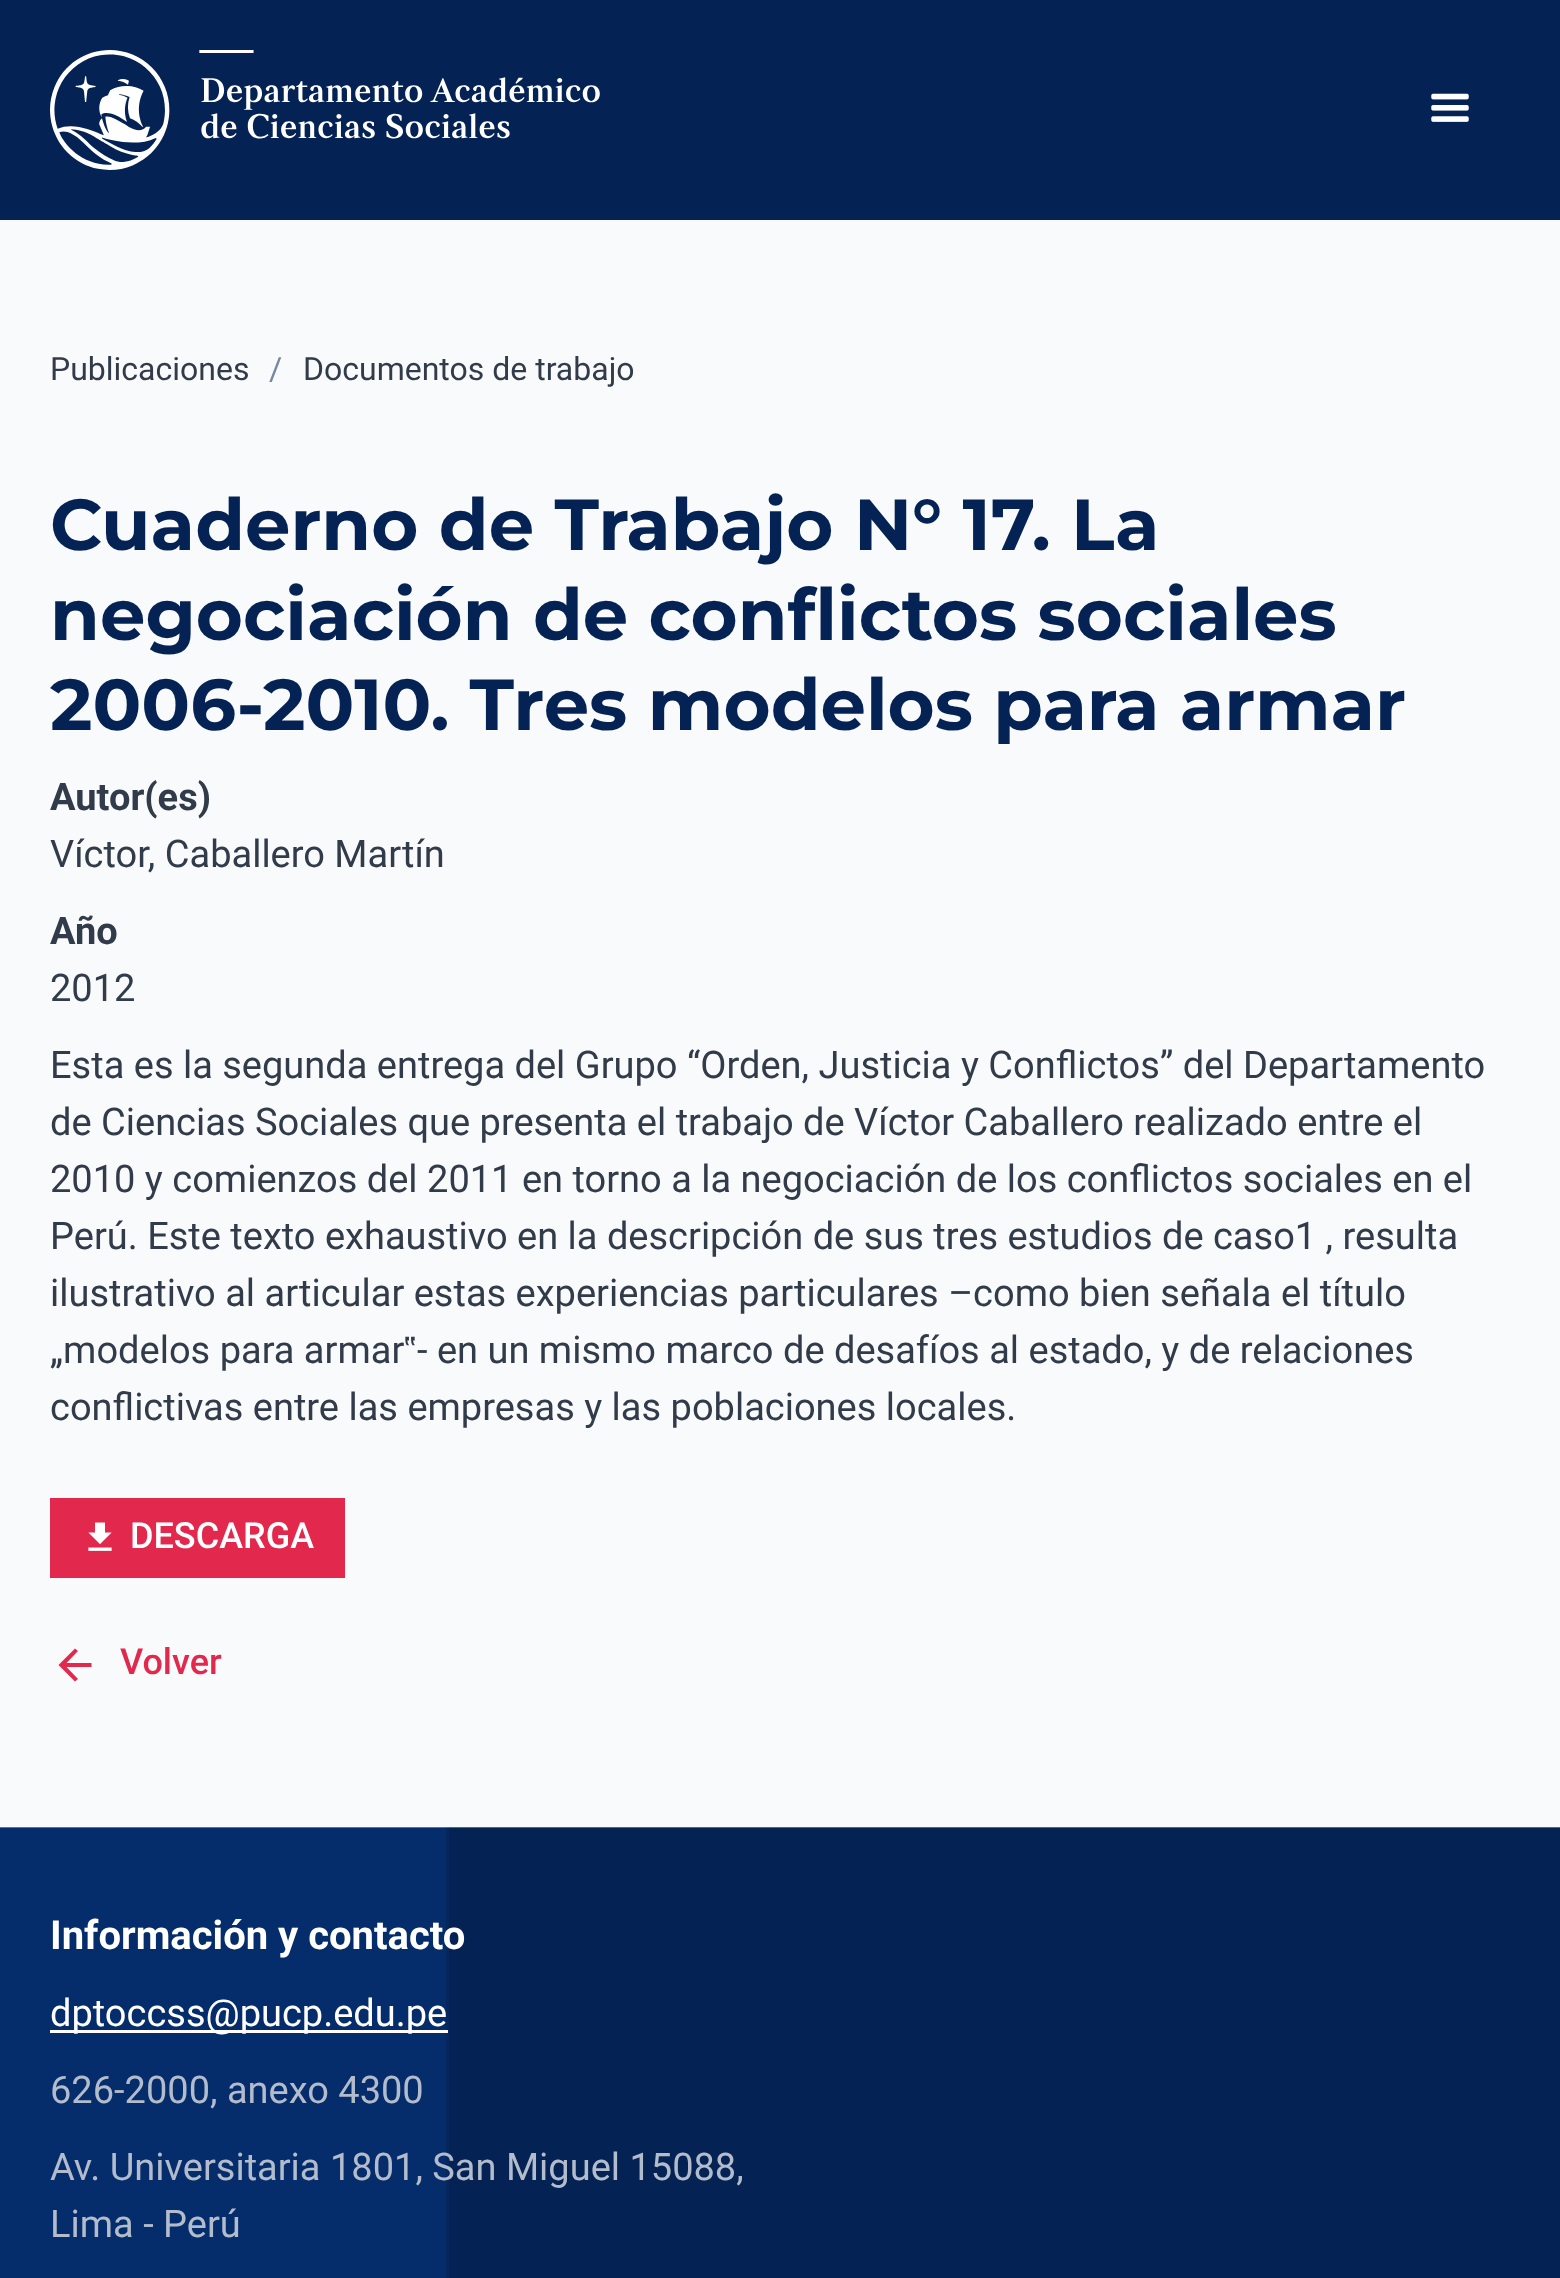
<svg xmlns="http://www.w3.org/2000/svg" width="1560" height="2278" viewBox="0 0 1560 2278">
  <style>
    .t1 { font: 32px Roboto; fill: #313b49; }
    .t2 { font: 32px Roboto; fill: #7587a3; }
    .t3 { font: bold 72px Montserrat; fill: #042354; }
    .t4 { font: bold 38px Roboto; fill: #313b49; }
    .t5 { font: 38px Roboto; fill: #313b49; }
    .t6 { font: 38px Liberation Sans; fill: #313b49; }
    .t7 { font: 500 36px Roboto; fill: #fff; }
    .t8 { font: 500 36px Roboto; fill: #e2284d; }
    .t9 { font: bold 40px Roboto; fill: #fff; }
    .t10 { font: 38px Roboto; fill: #fff; }
    .t11 { font: 38px Roboto; fill: #b2bccc; }
  </style>
  <rect width="100%" height="100%" fill="#f9fafb"/>
  <rect x="0" y="0" width="1560" height="220" fill="#042354"/>
  <image x="50" y="50" width="550" height="120" href="images/1.png"/>
  <image x="1431" y="93" width="38" height="29" href="images/2.png"/>
  <text x="50" y="380" class="t1">Publicaciones</text>
  <text x="269" y="380" class="t2">/</text>
  <text x="303" y="380" class="t1">Documentos de trabajo</text>
  <text x="50" y="550" class="t3">Cuaderno de Trabajo N° 17. La</text>
  <text x="50" y="640" class="t3">negociación de conflictos sociales</text>
  <text x="50" y="730" class="t3">2006-2010. Tres modelos para armar</text>
  <text x="50" y="810" class="t4">Autor(es)</text>
  <text x="50" y="867" class="t5">Víctor, Caballero Martín</text>
  <text x="50" y="944" class="t4">Año</text>
  <text x="50" y="1001" class="t5">2012</text>
  <text x="50" y="1078" class="t5">Esta es la segunda entrega del Grupo “Orden, Justicia y Conflictos” del Departamento</text>
  <text x="50" y="1135" class="t5">de Ciencias Sociales que presenta el trabajo de Víctor Caballero realizado entre el</text>
  <text x="50" y="1192" class="t5">2010 y comienzos del 2011 en torno a la negociación de los conflictos sociales en el</text>
  <text x="50" y="1249" class="t5">Perú. Este texto exhaustivo en la descripción de sus tres estudios de caso1 , resulta</text>
  <text x="50" y="1306" class="t5">ilustrativo al articular estas experiencias particulares –como bien señala el título</text>
  <text x="50" y="1363" class="t5">„modelos para armar</text>
  <text x="404" y="1363" class="t6">‟</text>
  <text x="417" y="1363" class="t5">- en un mismo marco de desafíos al estado, y de relaciones</text>
  <text x="50" y="1420" class="t5">conflictivas entre las empresas y las poblaciones locales.</text>
  <rect x="50" y="1498" width="295" height="80" fill="#e2284d"/>
  <image x="88" y="1522" width="24" height="29" href="images/3.png"/>
  <text x="130" y="1548" class="t7">DESCARGA</text>
  <path d="M91.5 1663V1667H66.5L78 1679L75 1681.5L58.5 1665L75 1648.5L78 1651L66.5 1663Z" fill="#e2284d"/>
  <text x="120" y="1674" class="t8">Volver</text>
  <image x="0" y="1827" width="1560" height="451" href="images/4.png"/>
  <text x="50" y="1949" class="t9">Información y contacto</text>
  <rect x="50" y="2030" width="398" height="3" fill="#fff"/>
  <text x="50" y="2026" class="t10">dptoccss@pucp.edu.pe</text>
  <text x="50" y="2103" class="t11">626-2000, anexo 4300</text>
  <text x="50" y="2180" class="t11">Av. Universitaria 1801, San Miguel 15088,</text>
  <text x="50" y="2237" class="t11">Lima - Perú</text>
</svg>
